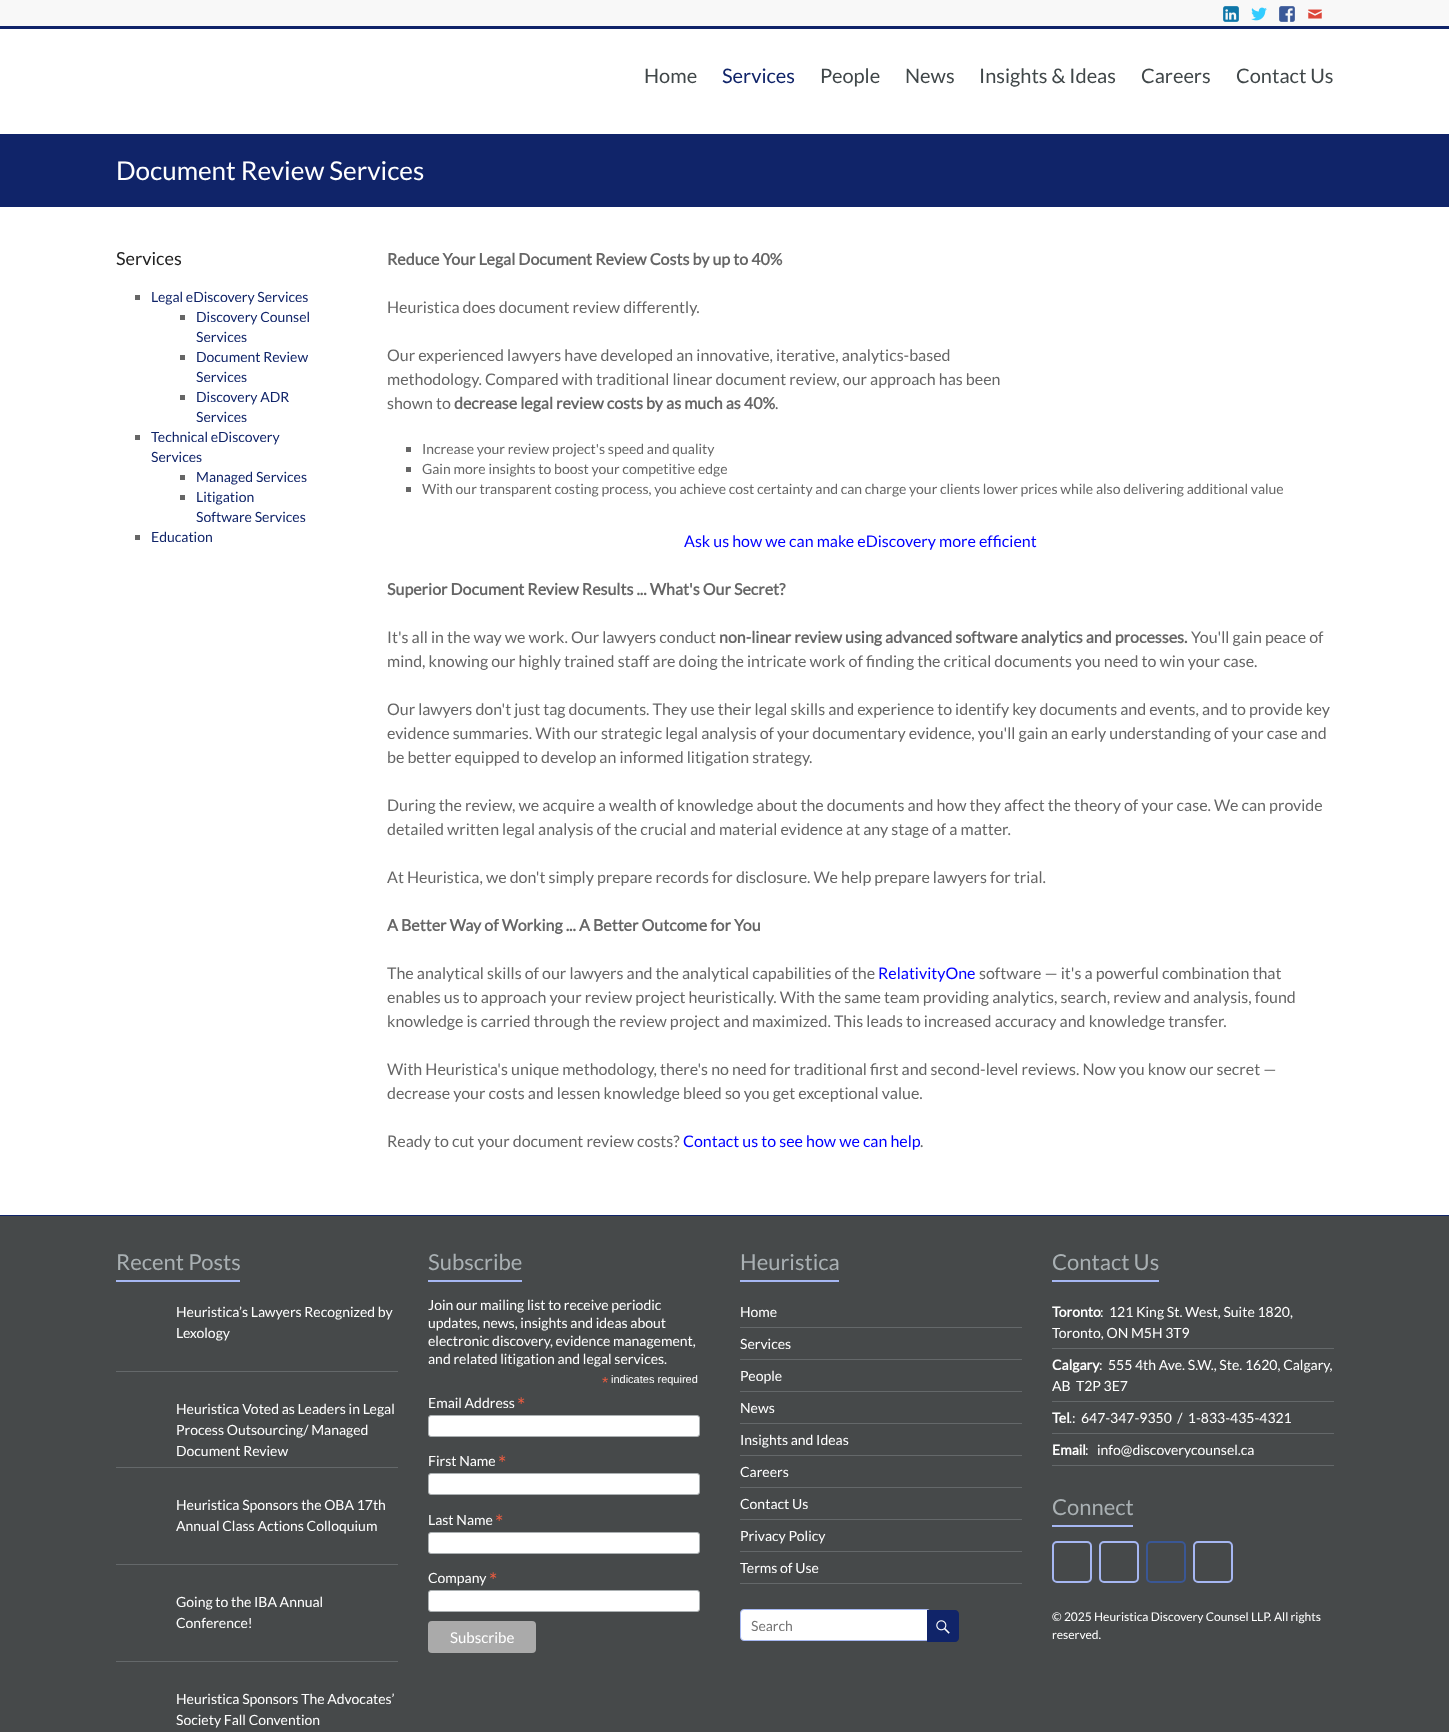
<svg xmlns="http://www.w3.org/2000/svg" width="1449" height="1732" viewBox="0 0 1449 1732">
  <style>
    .t1 { font: 20px Lato; fill: #404749; }
    .t2 { font: 20px Lato; fill: #102469; }
    .t3 { font: 26px Lato; fill: #fff; }
    .t4 { font: 18px Lato; fill: #222; }
    .t5 { font: 14px Lato; fill: #102469; }
    .t6 { font: bold 16px Lato; fill: #666; }
    .t7 { font: 16px Lato; fill: #666; }
    .t8 { font: 14px Lato; fill: #666; }
    .t9 { font: 16px Lato; fill: #00f; }
    .t10 { font: 22px Lato; fill: #a9b0b3; }
    .t11 { font: 14px Lato; fill: #fff; }
    .t12 { font: 16px Liberation Sans; fill: #e85c41; }
    .t13 { font: 11px Liberation Sans; fill: #fff; }
    .t14 { font: 21px Lato; fill: #e85c41; }
    .t15 { font: 15px Lato; fill: #fff; }
    .t16 { font: 14px Lato; fill: #757575; }
    .t17 { font: bold 14px Lato; fill: #fff; }
    .t18 { font: 12px Lato; fill: #fff; }
  </style>
  <rect width="100%" height="100%" fill="#fff"/>
  <rect x="0" y="0" width="1449" height="26" fill="#f8f8f8"/>
  <rect x="0" y="26" width="1449" height="3" fill="#102469"/>
  <image x="1223" y="6" width="16" height="16" href="images/1.png"/>
  <image x="1251" y="7" width="16" height="14" href="images/2.png"/>
  <image x="1279" y="6" width="16" height="16" href="images/3.png"/>
  <image x="1308" y="9" width="14" height="10" href="images/4.png"/>
  <text x="644" y="83" class="t1">Home</text>
  <text x="722" y="83" class="t2">Services</text>
  <text x="820" y="83" class="t1">People</text>
  <text x="905" y="83" class="t1">News</text>
  <text x="979" y="83" class="t1">Insights &amp; Ideas</text>
  <text x="1141" y="83" class="t1">Careers</text>
  <text x="1236" y="83" class="t1">Contact Us</text>
  <rect x="0" y="134" width="1449" height="73" fill="#102469"/>
  <text x="116" y="180" class="t3">Document Review Services</text>
  <text x="116" y="265" class="t4">Services</text>
  <rect x="135" y="295" width="5" height="5" fill="#666"/>
  <text x="151" y="302" class="t5">Legal eDiscovery Services</text>
  <rect x="180" y="315" width="5" height="5" fill="#666"/>
  <text x="196" y="322" class="t5">Discovery Counsel</text>
  <text x="196" y="342" class="t5">Services</text>
  <rect x="180" y="355" width="5" height="5" fill="#666"/>
  <text x="196" y="362" class="t5">Document Review</text>
  <text x="196" y="382" class="t5">Services</text>
  <rect x="180" y="395" width="5" height="5" fill="#666"/>
  <text x="196" y="402" class="t5">Discovery ADR</text>
  <text x="196" y="422" class="t5">Services</text>
  <rect x="135" y="435" width="5" height="5" fill="#666"/>
  <text x="151" y="442" class="t5">Technical eDiscovery</text>
  <text x="151" y="462" class="t5">Services</text>
  <rect x="180" y="475" width="5" height="5" fill="#666"/>
  <text x="196" y="482" class="t5">Managed Services</text>
  <rect x="180" y="495" width="5" height="5" fill="#666"/>
  <text x="196" y="502" class="t5">Litigation</text>
  <text x="196" y="522" class="t5">Software Services</text>
  <rect x="135" y="535" width="5" height="5" fill="#666"/>
  <text x="151" y="542" class="t5">Education</text>
  <text x="387" y="265" class="t6">Reduce Your Legal Document Review Costs by up to 40%</text>
  <text x="387" y="313" class="t7">Heuristica does document review differently.</text>
  <text x="387" y="361" class="t7">Our experienced lawyers have developed an innovative, iterative, analytics-based</text>
  <text x="387" y="385" class="t7">methodology. Compared with traditional linear document review, our approach has been</text>
  <text x="387" y="409" class="t7">shown to</text>
  <text x="454" y="409" class="t6">decrease legal review costs by as much as 40%</text>
  <text x="775" y="409" class="t7">.</text>
  <rect x="406" y="447" width="5" height="5" fill="#666"/>
  <text x="422" y="454" class="t8">Increase your review project's speed and quality</text>
  <rect x="406" y="467" width="5" height="5" fill="#666"/>
  <text x="422" y="474" class="t8">Gain more insights to boost your competitive edge</text>
  <rect x="406" y="487" width="5" height="5" fill="#666"/>
  <text x="422" y="494" class="t8">With our transparent costing process, you achieve cost certainty and can charge your clients lower prices while also delivering additional value</text>
  <text x="684" y="547" class="t9">Ask us how we can make eDiscovery more efficient</text>
  <text x="387" y="595" class="t6">Superior Document Review Results ... What's Our Secret?</text>
  <text x="387" y="643" class="t7">It's all in the way we work. Our lawyers conduct</text>
  <text x="719" y="643" class="t6">non-linear review using advanced software analytics and processes.</text>
  <text x="1191" y="643" class="t7">You'll gain peace of</text>
  <text x="387" y="667" class="t7">mind, knowing our highly trained staff are doing the intricate work of finding the critical documents you need to win your case.</text>
  <text x="387" y="715" class="t7">Our lawyers don't just tag documents. They use their legal skills and experience to identify key documents and events, and to provide key</text>
  <text x="387" y="739" class="t7">evidence summaries. With our strategic legal analysis of your documentary evidence, you'll gain an early understanding of your case and</text>
  <text x="387" y="763" class="t7">be better equipped to develop an informed litigation strategy.</text>
  <text x="387" y="811" class="t7">During the review, we acquire a wealth of knowledge about the documents and how they affect the theory of your case. We can provide</text>
  <text x="387" y="835" class="t7">detailed written legal analysis of the crucial and material evidence at any stage of a matter.</text>
  <text x="387" y="883" class="t7">At Heuristica, we don't simply prepare records for disclosure. We help prepare lawyers for trial.</text>
  <text x="387" y="931" class="t6">A Better Way of Working ... A Better Outcome for You</text>
  <text x="387" y="979" class="t7">The analytical skills of our lawyers and the analytical capabilities of the</text>
  <text x="878" y="979" class="t9">RelativityOne</text>
  <text x="979" y="979" class="t7">software — it's a powerful combination that</text>
  <text x="387" y="1003" class="t7">enables us to approach your review project heuristically. With the same team providing analytics, search, review and analysis, found</text>
  <text x="387" y="1027" class="t7">knowledge is carried through the review project and maximized. This leads to increased accuracy and knowledge transfer.</text>
  <text x="387" y="1075" class="t7">With Heuristica's unique methodology, there's no need for traditional first and second-level reviews. Now you know our secret —</text>
  <text x="387" y="1099" class="t7">decrease your costs and lessen knowledge bleed so you get exceptional value.</text>
  <text x="387" y="1147" class="t7">Ready to cut your document review costs?</text>
  <text x="683" y="1147" class="t9">Contact us to see how we can help</text>
  <text x="920" y="1147" class="t7">.</text>
  <rect x="0" y="1216" width="1449" height="516" fill="#46494a"/>
  <rect x="0" y="1215" width="1449" height="1" fill="#102469"/>
  <text x="116" y="1270" class="t10">Recent Posts</text>
  <rect x="116" y="1280" width="124" height="2" fill="#a6b7f2"/>
  <rect x="116" y="1371" width="282" height="1" fill="#64686a"/>
  <text x="176" y="1317" class="t11">Heuristica’s Lawyers Recognized by</text>
  <text x="176" y="1338" class="t11">Lexology</text>
  <rect x="116" y="1467" width="282" height="1" fill="#64686a"/>
  <text x="176" y="1414" class="t11">Heuristica Voted as Leaders in Legal</text>
  <text x="176" y="1435" class="t11">Process Outsourcing/ Managed</text>
  <text x="176" y="1456" class="t11">Document Review</text>
  <rect x="116" y="1564" width="282" height="1" fill="#64686a"/>
  <text x="176" y="1510" class="t11">Heuristica Sponsors the OBA 17th</text>
  <text x="176" y="1531" class="t11">Annual Class Actions Colloquium</text>
  <rect x="116" y="1661" width="282" height="1" fill="#64686a"/>
  <text x="176" y="1607" class="t11">Going to the IBA Annual</text>
  <text x="176" y="1628" class="t11">Conference!</text>
  <text x="176" y="1704" class="t11">Heuristica Sponsors The Advocates’</text>
  <text x="176" y="1725" class="t11">Society Fall Convention</text>
  <text x="428" y="1270" class="t10">Subscribe</text>
  <rect x="428" y="1280" width="94" height="2" fill="#a6b7f2"/>
  <text x="428" y="1310" class="t11">Join our mailing list to receive periodic</text>
  <text x="428" y="1328" class="t11">updates, news, insights and ideas about</text>
  <text x="428" y="1346" class="t11">electronic discovery, evidence management,</text>
  <text x="428" y="1364" class="t11">and related litigation and legal services.</text>
  <text x="602" y="1388" class="t12">*</text>
  <text x="611" y="1383" class="t13">indicates required</text>
  <text x="428" y="1408" class="t11">Email Address</text>
  <text x="517" y="1413" class="t14">*</text>
  <rect x="428.5" y="1415.5" width="271" height="21" rx="2.5" fill="#fff" stroke="#abb0b2"/>
  <text x="428" y="1466" class="t11">First Name</text>
  <text x="498" y="1471" class="t14">*</text>
  <rect x="428.5" y="1473.5" width="271" height="21" rx="2.5" fill="#fff" stroke="#abb0b2"/>
  <text x="428" y="1525" class="t11">Last Name</text>
  <text x="495" y="1530" class="t14">*</text>
  <rect x="428.5" y="1532.5" width="271" height="21" rx="2.5" fill="#fff" stroke="#abb0b2"/>
  <text x="428" y="1583" class="t11">Company</text>
  <text x="489" y="1588" class="t14">*</text>
  <rect x="428.5" y="1590.5" width="271" height="21" rx="2.5" fill="#fff" stroke="#abb0b2"/>
  <rect x="428" y="1621" width="108" height="32" rx="4" fill="#aaa"/>
  <text x="450" y="1643" class="t15">Subscribe</text>
  <text x="740" y="1270" class="t10">Heuristica</text>
  <rect x="740" y="1280" width="99" height="2" fill="#a6b7f2"/>
  <rect x="740" y="1327" width="282" height="1" fill="#64686a"/>
  <text x="740" y="1317" class="t11">Home</text>
  <rect x="740" y="1359" width="282" height="1" fill="#64686a"/>
  <text x="740" y="1349" class="t11">Services</text>
  <rect x="740" y="1391" width="282" height="1" fill="#64686a"/>
  <text x="740" y="1381" class="t11">People</text>
  <rect x="740" y="1423" width="282" height="1" fill="#64686a"/>
  <text x="740" y="1413" class="t11">News</text>
  <rect x="740" y="1455" width="282" height="1" fill="#64686a"/>
  <text x="740" y="1445" class="t11">Insights and Ideas</text>
  <rect x="740" y="1487" width="282" height="1" fill="#64686a"/>
  <text x="740" y="1477" class="t11">Careers</text>
  <rect x="740" y="1519" width="282" height="1" fill="#64686a"/>
  <text x="740" y="1509" class="t11">Contact Us</text>
  <rect x="740" y="1551" width="282" height="1" fill="#64686a"/>
  <text x="740" y="1541" class="t11">Privacy Policy</text>
  <rect x="740" y="1583" width="282" height="1" fill="#64686a"/>
  <text x="740" y="1573" class="t11">Terms of Use</text>
  <rect x="740.5" y="1609.5" width="190" height="31" rx="3.5" fill="#fff" stroke="#a6b7f2"/>
  <text x="751" y="1631" class="t16">Search</text>
  <path d="M927 1610H955C957 1610 959 1612 959 1614V1638C959 1640 957 1642 955 1642H927Z" fill="#102469"/>
  <image x="936" y="1620" width="14" height="14" href="images/5.png"/>
  <text x="1052" y="1270" class="t10">Contact Us</text>
  <rect x="1052" y="1280" width="107" height="2" fill="#a6b7f2"/>
  <rect x="1052" y="1348" width="282" height="1" fill="#64686a"/>
  <text x="1052" y="1317" class="t17">Toronto</text>
  <text x="1100" y="1317" class="t11" xml:space="preserve">:  121 King St. West, Suite 1820,</text>
  <text x="1052" y="1338" class="t11">Toronto, ON M5H 3T9</text>
  <rect x="1052" y="1401" width="282" height="1" fill="#64686a"/>
  <text x="1052" y="1370" class="t17">Calgary</text>
  <text x="1099" y="1370" class="t11" xml:space="preserve">:  555 4th Ave. S.W., Ste. 1620, Calgary,</text>
  <text x="1052" y="1391" class="t11" xml:space="preserve">AB  T2P 3E7</text>
  <rect x="1052" y="1433" width="282" height="1" fill="#64686a"/>
  <text x="1052" y="1423" class="t17">Tel</text>
  <text x="1069" y="1423" class="t11" xml:space="preserve">.:  647-347-9350  /  1-833-435-4321</text>
  <rect x="1052" y="1465" width="282" height="1" fill="#64686a"/>
  <text x="1052" y="1455" class="t17">Email</text>
  <text x="1085" y="1455" class="t11">:</text>
  <text x="1097" y="1455" class="t11">info@discoverycounsel.ca</text>
  <text x="1052" y="1515" class="t10">Connect</text>
  <rect x="1052" y="1525" width="81" height="2" fill="#a6b7f2"/>
  <rect x="1053" y="1542" width="38" height="40" rx="4" fill="none" stroke="#a6b7f2" stroke-width="2"/>
  <rect x="1100" y="1542" width="38" height="40" rx="4" fill="none" stroke="#a6b7f2" stroke-width="2"/>
  <rect x="1147" y="1542" width="38" height="40" rx="4" fill="none" stroke="#3a5795" stroke-width="2"/>
  <rect x="1194" y="1542" width="38" height="40" rx="4" fill="none" stroke="#a6b7f2" stroke-width="2"/>
  <text x="1052" y="1621" class="t18">© 2025 Heuristica Discovery Counsel LLP. All rights</text>
  <text x="1052" y="1639" class="t18">reserved.</text>
</svg>
